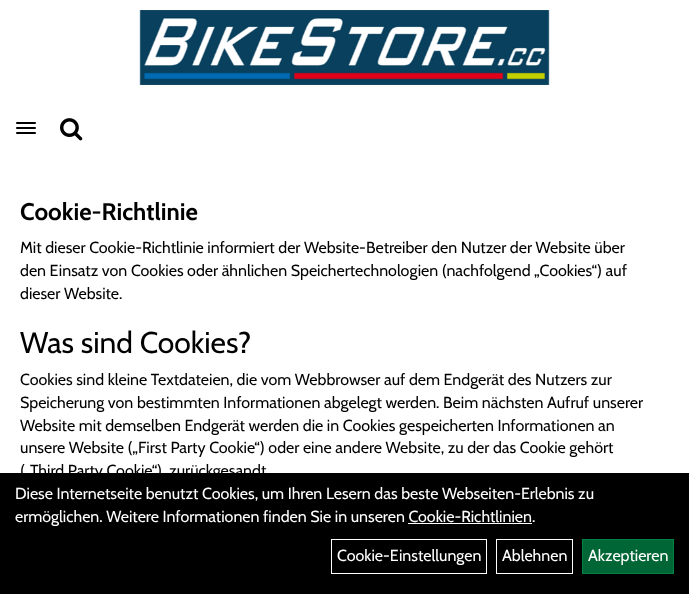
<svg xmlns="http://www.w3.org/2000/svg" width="689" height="594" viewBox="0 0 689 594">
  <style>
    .t1 { font: bold 24px Cabin; fill: #000; }
    .t2 { font: 16px Cabin; fill: #000; }
    .t3 { font: 30px Cabin; fill: #000; }
    .t4 { font: 16px Cabin; fill: #fff; }
  </style>
  <rect width="100%" height="100%" fill="#fff"/>
  <image x="139" y="10" width="411" height="75" href="images/1.png"/>
  <rect x="16" y="122" width="20" height="2" rx="1" fill="#000"/>
  <rect x="16" y="127" width="20" height="2" rx="1" fill="#000"/>
  <rect x="16" y="132" width="20" height="2" rx="1" fill="#000"/>
  <image x="60" y="118" width="23" height="23" href="images/2.png"/>
  <text x="20" y="220" class="t1">Cookie-Richtlinie</text>
  <text x="20" y="253" class="t2">Mit dieser Cookie-Richtlinie informiert der Website-Betreiber den Nutzer der Website über</text>
  <text x="20" y="276" class="t2">den Einsatz von Cookies oder ähnlichen Speichertechnologien (nachfolgend „Cookies“) auf</text>
  <text x="20" y="299" class="t2">dieser Website.</text>
  <text x="20" y="353" class="t3">Was sind Cookies?</text>
  <text x="20" y="385" class="t2">Cookies sind kleine Textdateien, die vom Webbrowser auf dem Endgerät des Nutzers zur</text>
  <text x="20" y="408" class="t2">Speicherung von bestimmten Informationen abgelegt werden. Beim nächsten Aufruf unserer</text>
  <text x="20" y="431" class="t2">Website mit demselben Endgerät werden die in Cookies gespeicherten Informationen an</text>
  <text x="20" y="453" class="t2">unsere Website („First Party Cookie“) oder eine andere Website, zu der das Cookie gehört</text>
  <text x="20" y="476" class="t2">(„Third Party Cookie“), zurückgesandt</text>
  <rect x="0" y="473" width="689" height="121" fill="#000"/>
  <text x="15" y="499" class="t4">Diese Internetseite benutzt Cookies, um Ihren Lesern das beste Webseiten-Erlebnis zu</text>
  <text x="15" y="522" class="t4">ermöglichen. Weitere Informationen finden Sie in unseren Cookie-Richtlinien.</text>
  <rect x="408" y="523" width="124" height="1" fill="#fff"/>
  <rect x="331.5" y="539.5" width="155" height="34" fill="none" stroke="#fff"/>
  <text x="337" y="561" class="t4">Cookie-Einstellungen</text>
  <rect x="496.5" y="539.5" width="76" height="34" fill="none" stroke="#fff"/>
  <text x="502" y="561" class="t4">Ablehnen</text>
  <rect x="582.5" y="539.5" width="91" height="34" fill="#006635" stroke="#008446"/>
  <text x="588" y="561" class="t4">Akzeptieren</text>
</svg>
